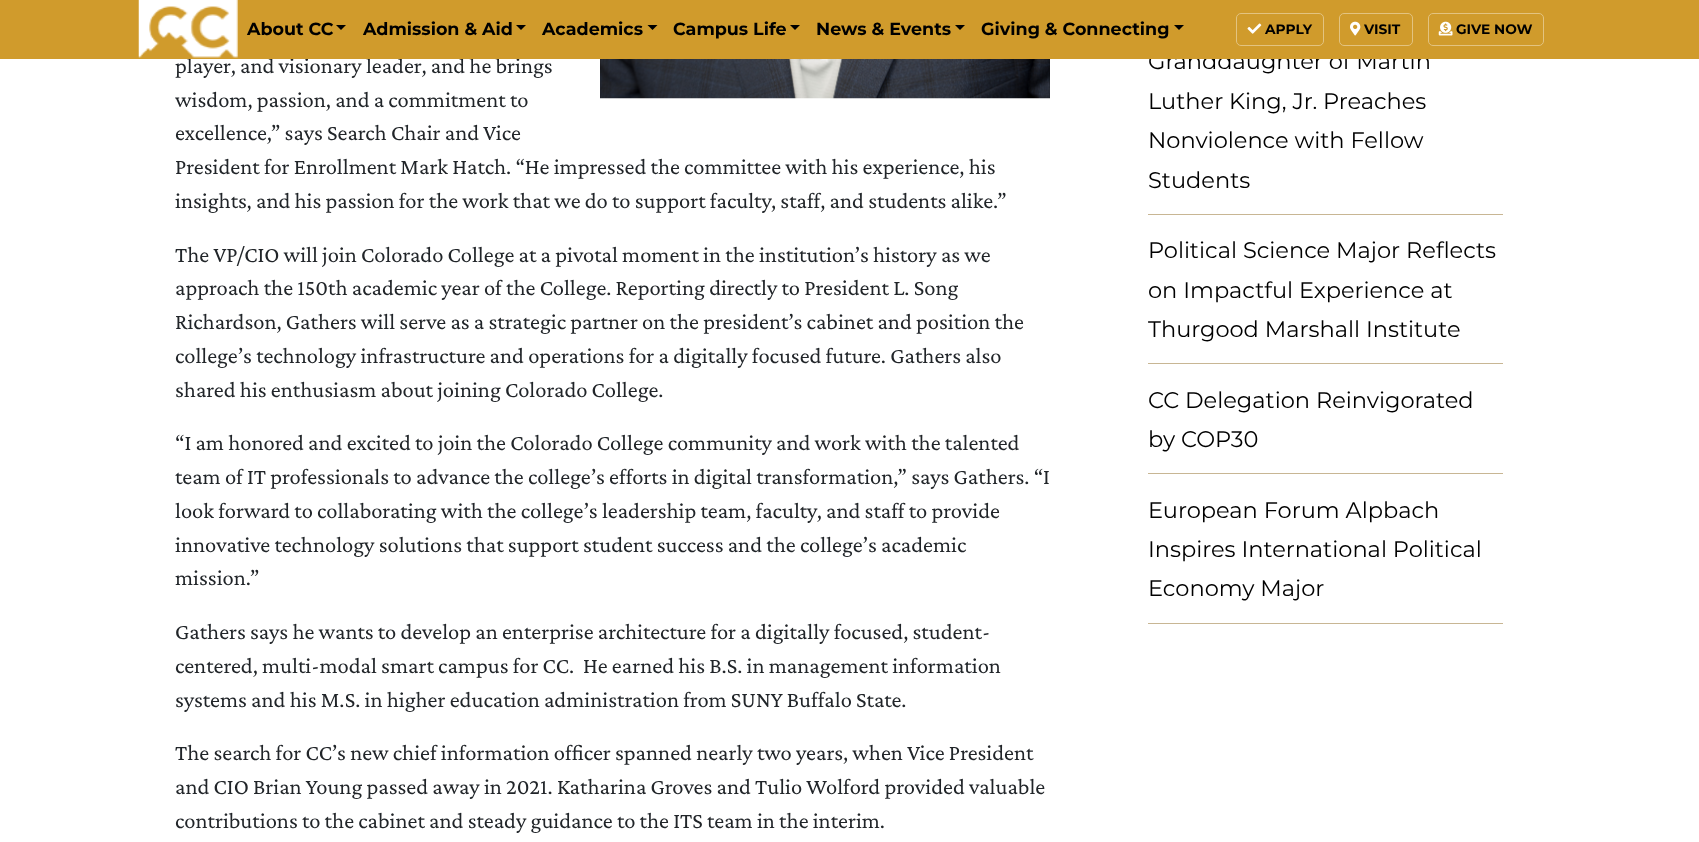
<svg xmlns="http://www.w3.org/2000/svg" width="1699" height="842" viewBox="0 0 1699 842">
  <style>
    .t1 { font: 22.5px Crimson Pro; fill: #212529; }
    .t2 { font: 22.5px Montserrat; fill: #000; }
    .t3 { font: bold 17.5px Montserrat; fill: #000; }
    .t4 { font: bold 13.75px Montserrat; fill: #000; }
  </style>
  <rect width="100%" height="100%" fill="#fff"/>
  <text x="175" y="73" class="t1">player, and visionary leader, and he brings</text>
  <text x="1148" y="69" class="t2">Granddaughter of Martin</text>
  <rect x="0" y="0" width="1699" height="59" fill="#d09b2c"/>
  <image x="138" y="0" width="100" height="58" href="images/1.png"/>
  <text x="247" y="35" class="t3">About CC</text>
  <path d="M336 25H346L341 30Z" fill="#000"/>
  <text x="363" y="35" class="t3">Admission &amp; Aid</text>
  <path d="M516 25H526L521 30Z" fill="#000"/>
  <text x="542" y="35" class="t3">Academics</text>
  <path d="M647.5 25H657.5L652.5 30Z" fill="#000"/>
  <text x="673" y="35" class="t3">Campus Life</text>
  <path d="M790 25H800L795 30Z" fill="#000"/>
  <text x="816" y="35" class="t3">News &amp; Events</text>
  <path d="M955 25H965L960 30Z" fill="#000"/>
  <text x="981" y="35" class="t3">Giving &amp; Connecting</text>
  <path d="M1174 25H1184L1179 30Z" fill="#000"/>
  <rect x="1236.5" y="13.5" width="87" height="32" rx="4.5" fill="none" stroke="#e3c380"/>
  <image x="1247" y="23" width="15" height="11" href="images/2.png"/>
  <text x="1265" y="34" class="t4">APPLY</text>
  <rect x="1339.5" y="13.5" width="73" height="32" rx="4.5" fill="none" stroke="#e3c380"/>
  <image x="1350" y="21" width="11" height="15" href="images/3.png"/>
  <text x="1364" y="34" class="t4">VISIT</text>
  <rect x="1428.5" y="13.5" width="115" height="32" rx="4.5" fill="none" stroke="#e3c380"/>
  <image x="1438" y="21" width="15" height="15" href="images/4.png"/>
  <text x="1456" y="34" class="t4">GIVE NOW</text>
  <text x="175" y="107" class="t1">wisdom, passion, and a commitment to</text>
  <text x="175" y="140" class="t1">excellence,” says Search Chair and Vice</text>
  <text x="175" y="174" class="t1">President for Enrollment Mark Hatch. “He impressed the committee with his experience, his</text>
  <text x="175" y="208" class="t1">insights, and his passion for the work that we do to support faculty, staff, and students alike.”</text>
  <text x="175" y="262" class="t1">The VP/CIO will join Colorado College at a pivotal moment in the institution’s history as we</text>
  <text x="175" y="295" class="t1">approach the 150th academic year of the College. Reporting directly to President L. Song</text>
  <text x="175" y="329" class="t1">Richardson, Gathers will serve as a strategic partner on the president’s cabinet and position the</text>
  <text x="175" y="363" class="t1">college’s technology infrastructure and operations for a digitally focused future. Gathers also</text>
  <text x="175" y="397" class="t1">shared his enthusiasm about joining Colorado College.</text>
  <text x="175" y="450" class="t1">“I am honored and excited to join the Colorado College community and work with the talented</text>
  <text x="175" y="484" class="t1">team of IT professionals to advance the college’s efforts in digital transformation,” says Gathers. “I</text>
  <text x="175" y="518" class="t1">look forward to collaborating with the college’s leadership team, faculty, and staff to provide</text>
  <text x="175" y="552" class="t1">innovative technology solutions that support student success and the college’s academic</text>
  <text x="175" y="585" class="t1">mission.”</text>
  <text x="175" y="639" class="t1">Gathers says he wants to develop an enterprise architecture for a digitally focused, student-</text>
  <text x="175" y="673" class="t1">centered, multi-modal smart campus for CC.</text>
  <text x="583" y="673" class="t1">He earned his B.S. in management information</text>
  <text x="175" y="707" class="t1">systems and his M.S. in higher education administration from SUNY Buffalo State.</text>
  <text x="175" y="760" class="t1">The search for CC’s new chief information officer spanned nearly two years, when Vice President</text>
  <text x="175" y="794" class="t1">and CIO Brian Young passed away in 2021. Katharina Groves and Tulio Wolford provided valuable</text>
  <text x="175" y="828" class="t1">contributions to the cabinet and steady guidance to the ITS team in the interim.</text>
  <image x="600" y="59" width="450" height="40" href="images/5.png"/>
  <rect x="1148" y="214" width="355" height="1" fill="#c8b694"/>
  <text x="1148" y="109" class="t2">Luther King, Jr. Preaches</text>
  <text x="1148" y="148" class="t2">Nonviolence with Fellow</text>
  <text x="1148" y="188" class="t2">Students</text>
  <rect x="1148" y="363" width="355" height="1" fill="#c8b694"/>
  <text x="1148" y="258" class="t2">Political Science Major Reflects</text>
  <text x="1148" y="298" class="t2">on Impactful Experience at</text>
  <text x="1148" y="337" class="t2">Thurgood Marshall Institute</text>
  <rect x="1148" y="473" width="355" height="1" fill="#c8b694"/>
  <text x="1148" y="408" class="t2">CC Delegation Reinvigorated</text>
  <text x="1148" y="447" class="t2">by COP30</text>
  <rect x="1148" y="623" width="355" height="1" fill="#c8b694"/>
  <text x="1148" y="518" class="t2">European Forum Alpbach</text>
  <text x="1148" y="557" class="t2">Inspires International Political</text>
  <text x="1148" y="596" class="t2">Economy Major</text>
</svg>
